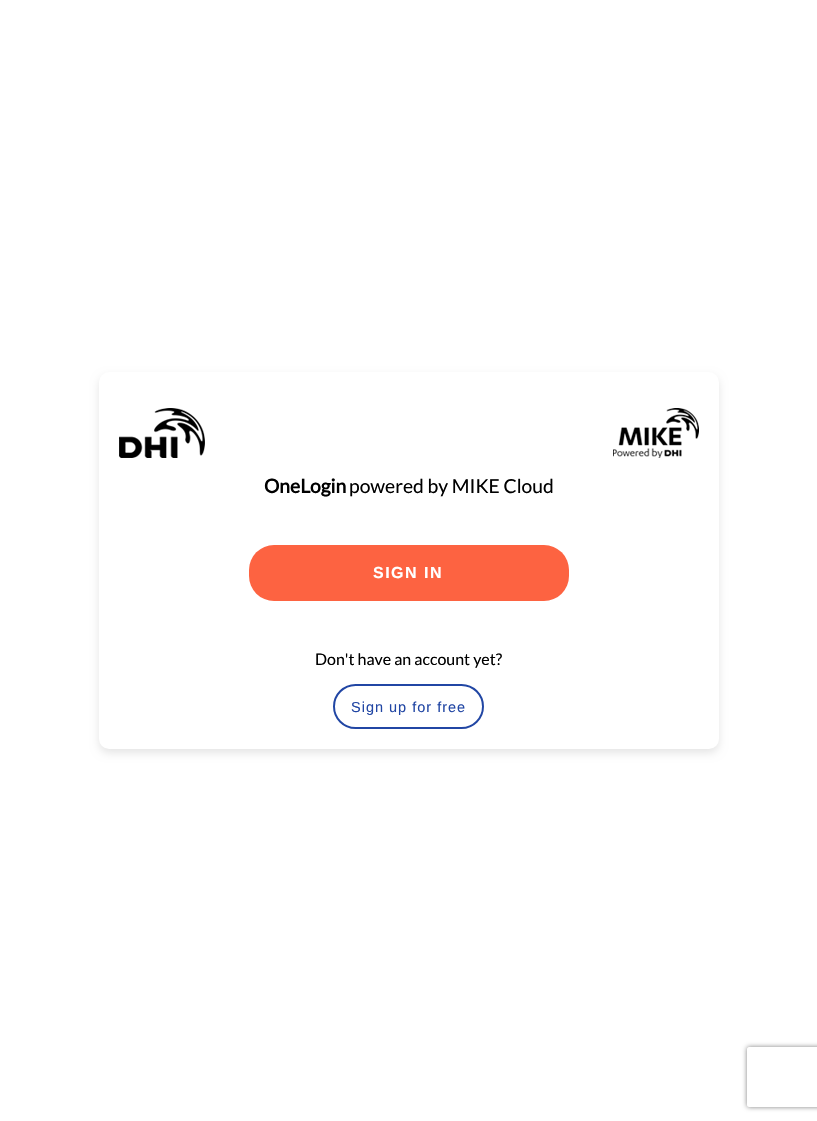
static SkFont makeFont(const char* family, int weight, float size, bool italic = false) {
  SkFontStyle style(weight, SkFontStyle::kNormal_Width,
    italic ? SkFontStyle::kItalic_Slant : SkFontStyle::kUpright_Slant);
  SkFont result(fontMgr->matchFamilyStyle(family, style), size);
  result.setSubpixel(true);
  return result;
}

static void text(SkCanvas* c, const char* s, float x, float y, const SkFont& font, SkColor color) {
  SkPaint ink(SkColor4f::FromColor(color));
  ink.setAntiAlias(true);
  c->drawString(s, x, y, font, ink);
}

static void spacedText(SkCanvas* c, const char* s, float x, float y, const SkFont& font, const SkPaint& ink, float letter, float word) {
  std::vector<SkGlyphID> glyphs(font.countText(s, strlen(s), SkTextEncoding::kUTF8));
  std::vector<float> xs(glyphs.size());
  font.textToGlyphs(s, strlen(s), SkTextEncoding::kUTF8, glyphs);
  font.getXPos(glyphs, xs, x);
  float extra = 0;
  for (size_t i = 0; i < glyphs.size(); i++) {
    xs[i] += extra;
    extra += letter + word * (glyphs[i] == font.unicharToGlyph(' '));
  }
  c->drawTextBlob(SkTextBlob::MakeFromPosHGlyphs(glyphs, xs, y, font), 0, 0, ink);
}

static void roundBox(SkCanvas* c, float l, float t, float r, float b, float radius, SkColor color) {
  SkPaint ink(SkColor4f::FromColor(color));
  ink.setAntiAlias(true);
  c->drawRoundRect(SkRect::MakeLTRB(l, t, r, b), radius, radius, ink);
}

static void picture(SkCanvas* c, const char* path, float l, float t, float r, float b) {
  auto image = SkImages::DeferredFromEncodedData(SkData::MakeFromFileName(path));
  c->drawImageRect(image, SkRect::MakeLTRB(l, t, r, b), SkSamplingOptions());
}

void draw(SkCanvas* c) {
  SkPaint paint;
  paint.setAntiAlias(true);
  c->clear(0xffffffff);
  paint.setColor(0x1a000000);
  paint.setMaskFilter(SkMaskFilter::MakeBlur(kNormal_SkBlurStyle, 4));
  c->drawRoundRect(SkRect::MakeLTRB(99, 376, 719, 753), 10, 10, paint);
  paint.setMaskFilter(nullptr);
  roundBox(c, 99, 372, 719, 749, 10, 0xffffffff);
  picture(c, "img_01.png", 119, 408, 205, 458);
  picture(c, "img_02.png", 613, 408, 699, 458);
  SkFont face1 = makeFont("Lato", 700, 19.25f);
  text(c, "OneLogin", 264, 493, face1, 0xff000000);
  SkFont face2 = makeFont("Lato", 400, 19.25f);
  text(c, "powered by MIKE Cloud", 349, 493, face2, 0xff000000);
  roundBox(c, 249, 545, 569, 601, 25, 0xfffd6341);
  SkFont face3 = makeFont("Liberation Sans", 700, 16);
  paint.setColor(0xffffffff);
  spacedText(c, "SIGN IN", 373, 578, face3, paint, 1.5f, 0);
  SkFont face4 = makeFont("Lato", 400, 16);
  text(c, "Don't have an account yet?", 315, 665, face4, 0xff000000);
  paint.setStyle(SkPaint::kStroke_Style);
  paint.setStrokeWidth(2);
  paint.setColor(0xff2146a4);
  c->drawRoundRect(SkRect::MakeLTRB(334, 685, 483, 728), 21.5f, 21.5f, paint);
  SkFont face5 = makeFont("Liberation Sans", 400, 14.5f);
  paint.setStyle(SkPaint::kFill_Style);
  spacedText(c, "Sign up for free", 351, 712, face5, paint, 1, 0);
  c->save();
  c->clipPath(SkPathBuilder(SkPathFillType::kEvenOdd).moveTo(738, 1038).lineTo(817, 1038).lineTo(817, 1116).lineTo(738, 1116).close().moveTo(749, 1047).lineTo(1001, 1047).cubicTo(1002, 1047, 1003, 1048, 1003, 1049).lineTo(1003, 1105).cubicTo(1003, 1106, 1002, 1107, 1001, 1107).lineTo(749, 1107).cubicTo(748, 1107, 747, 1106, 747, 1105).lineTo(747, 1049).cubicTo(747, 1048, 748, 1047, 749, 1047).close().detach(), true);
  paint.setColor(0xff808080);
  paint.setMaskFilter(SkMaskFilter::MakeBlur(kNormal_SkBlurStyle, 2.5f));
  c->drawRoundRect(SkRect::MakeLTRB(747, 1047, 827, 1107), 2, 2, paint);
  paint.setMaskFilter(nullptr);
  c->restore();
}
